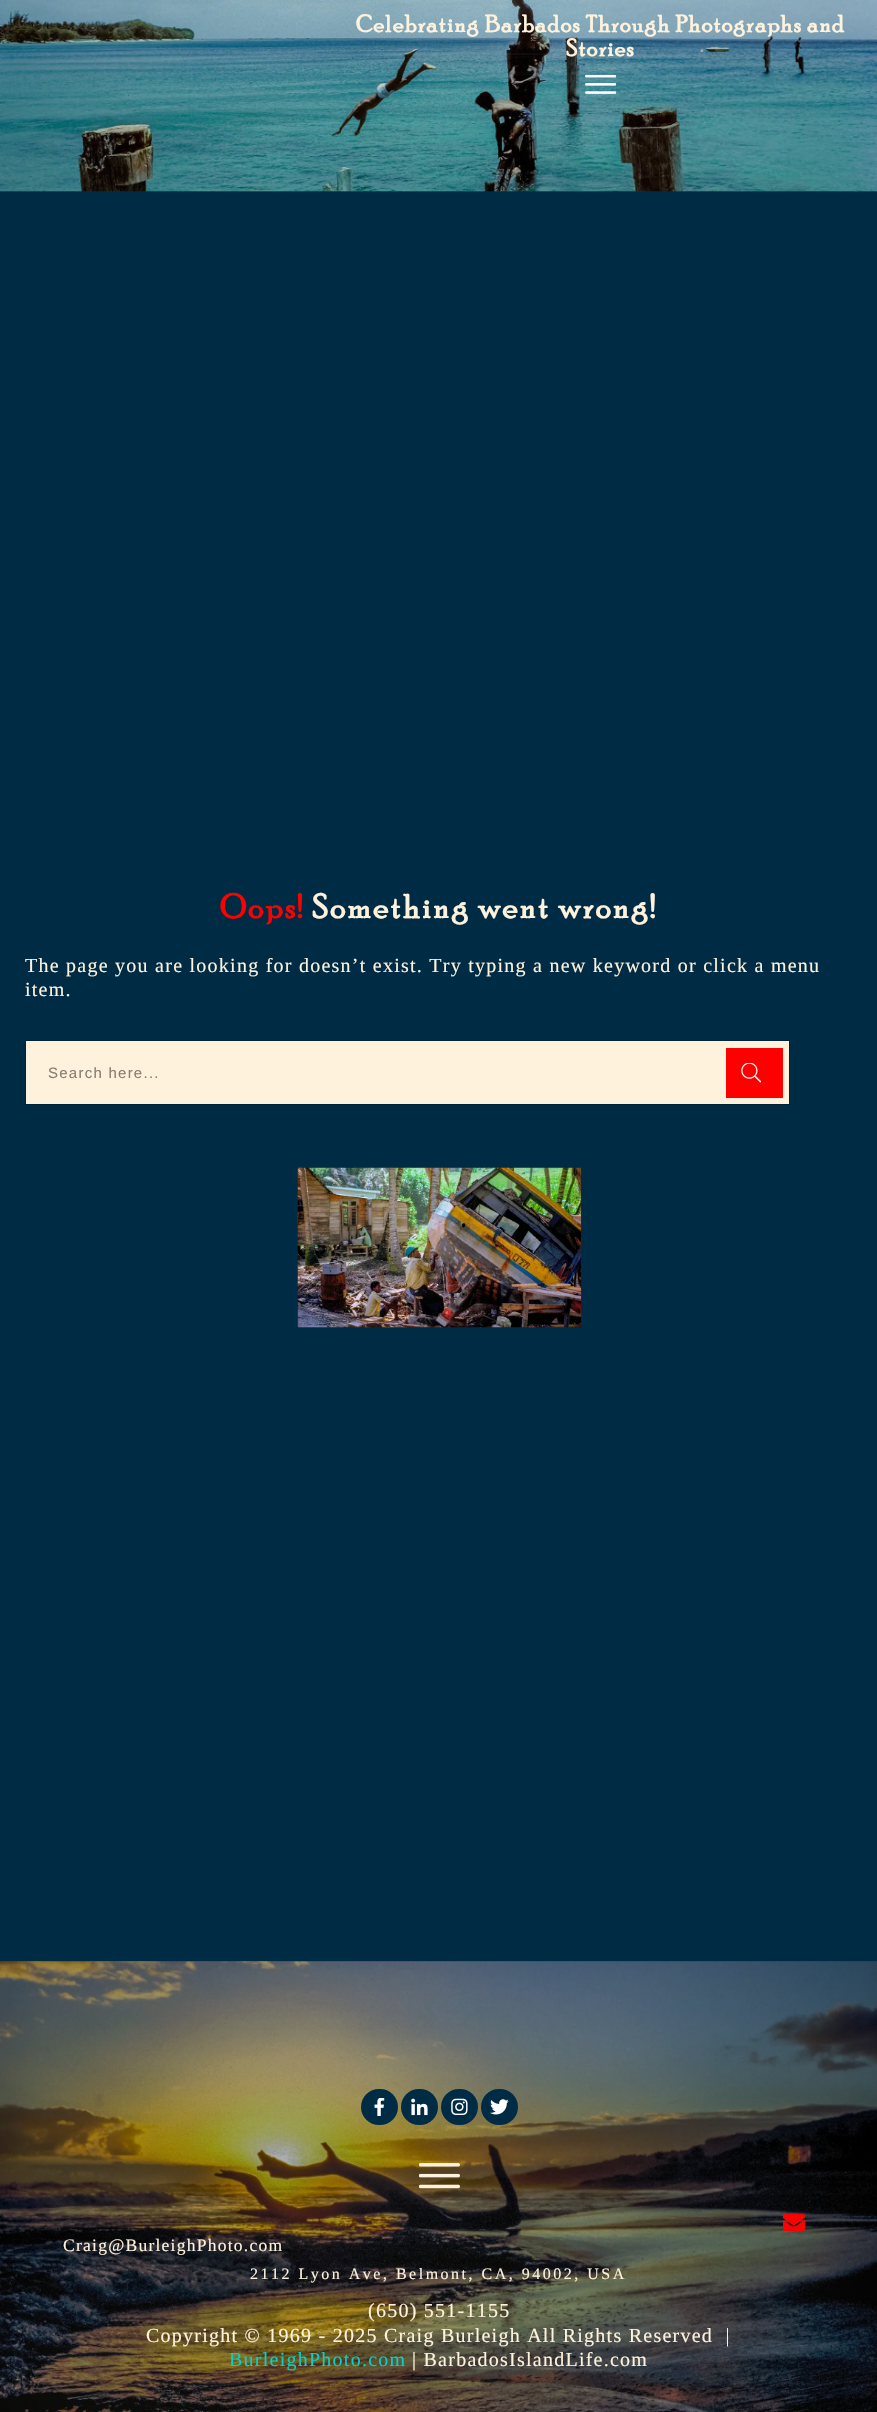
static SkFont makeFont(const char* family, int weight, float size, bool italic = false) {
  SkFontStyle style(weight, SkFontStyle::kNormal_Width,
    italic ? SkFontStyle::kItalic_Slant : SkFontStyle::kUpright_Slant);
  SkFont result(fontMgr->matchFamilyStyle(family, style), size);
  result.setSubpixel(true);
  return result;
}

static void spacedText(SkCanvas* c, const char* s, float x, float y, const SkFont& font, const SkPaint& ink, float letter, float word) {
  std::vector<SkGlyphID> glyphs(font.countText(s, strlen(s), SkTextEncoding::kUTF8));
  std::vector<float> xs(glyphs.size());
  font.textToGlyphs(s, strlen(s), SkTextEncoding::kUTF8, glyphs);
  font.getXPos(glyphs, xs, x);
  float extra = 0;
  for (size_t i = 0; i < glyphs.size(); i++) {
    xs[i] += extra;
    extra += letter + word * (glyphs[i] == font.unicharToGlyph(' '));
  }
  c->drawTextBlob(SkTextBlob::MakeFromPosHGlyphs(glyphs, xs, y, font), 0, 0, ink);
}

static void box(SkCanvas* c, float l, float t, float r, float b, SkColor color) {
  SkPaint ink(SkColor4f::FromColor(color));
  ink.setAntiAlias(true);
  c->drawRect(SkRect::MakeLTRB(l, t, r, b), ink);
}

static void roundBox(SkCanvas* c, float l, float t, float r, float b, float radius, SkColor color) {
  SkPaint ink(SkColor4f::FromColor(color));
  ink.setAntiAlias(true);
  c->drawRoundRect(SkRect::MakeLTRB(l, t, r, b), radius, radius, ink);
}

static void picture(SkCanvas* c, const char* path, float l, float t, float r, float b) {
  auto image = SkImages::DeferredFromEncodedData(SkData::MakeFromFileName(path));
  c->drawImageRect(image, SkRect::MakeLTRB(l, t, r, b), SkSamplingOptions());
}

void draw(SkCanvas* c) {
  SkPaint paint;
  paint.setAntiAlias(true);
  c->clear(0xff002b44);
  picture(c, "img_01.png", 0, 0, 877, 192);
  SkFont face1 = makeFont("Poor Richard", 700, 24);
  paint.setColor(0xfffff2dd);
  spacedText(c, "Celebrating Barbados Through Photographs and", 356, 32, face1, paint, 1.25f, 0);
  spacedText(c, "Stories", 566, 56, face1, paint, 1.25f, 0);
  picture(c, "img_02.png", 585, 74, 616, 94);
  SkFont face2 = makeFont("Poor Richard", 700, 33.75f);
  paint.setColor(0xffff0000);
  spacedText(c, "Oops!", 220, 918, face2, paint, 2.5f, 0);
  paint.setColor(0xfffff2dd);
  spacedText(c, "Something went wrong!", 312, 918, face2, paint, 2.5f, 0);
  SkFont face3 = makeFont("Liberation Serif", 400, 20);
  spacedText(c, "The page you are looking for doesn’t exist. Try typing a new keyword or click a menu", 25, 972, face3, paint, 1.25f, 0);
  spacedText(c, "item.", 25, 996, face3, paint, 1.25f, 0);
  c->drawRect(SkRect::MakeLTRB(25.5f, 1040.5f, 789.5f, 1104.5f), paint);
  paint.setStyle(SkPaint::kStroke_Style);
  paint.setStrokeWidth(1);
  paint.setColor(0xff002235);
  c->drawRect(SkRect::MakeLTRB(25.5f, 1040.5f, 789.5f, 1104.5f), paint);
  SkFont face4 = makeFont("Liberation Sans", 400, 15);
  paint.setStyle(SkPaint::kFill_Style);
  paint.setColor(0xff857e73);
  spacedText(c, "Search here...", 48, 1078, face4, paint, 1.25f, 0);
  box(c, 726, 1048, 783, 1098, 0xffff0000);
  picture(c, "img_03.png", 741, 1063, 761, 1083);
  picture(c, "img_04.png", 297, 1167, 582, 1328);
  picture(c, "img_05.png", 0, 1961, 877, 2412);
  roundBox(c, 361, 2089, 398, 2125, 18, 0xff002b44);
  picture(c, "img_06.png", 374, 2098, 385, 2116);
  roundBox(c, 401, 2089, 438, 2125, 18, 0xff002b44);
  picture(c, "img_07.png", 411, 2098, 428, 2116);
  roundBox(c, 441, 2089, 478, 2125, 18, 0xff002b44);
  picture(c, "img_08.png", 451, 2098, 468, 2115);
  roundBox(c, 481, 2089, 518, 2125, 18, 0xff002b44);
  picture(c, "img_09.png", 490, 2099, 509, 2115);
  picture(c, "img_10.png", 419, 2163, 460, 2189);
  picture(c, "img_11.png", 783, 2214, 805, 2231);
  SkFont face5 = makeFont("Liberation Serif", 400, 17.5f);
  paint.setColor(0xfffff2dd);
  spacedText(c, "Craig@BurleighPhoto.com", 63, 2251, face5, paint, 1.25f, 0);
  SkFont face6 = makeFont("Liberation Serif", 400, 16);
  spacedText(c, "2112 Lyon Ave, Belmont, CA, 94002, USA", 250, 2279, face6, paint, 2.5f, 0);
  spacedText(c, "(650) 551-1155", 368, 2317, face3, paint, 1.25f, 0);
  spacedText(c, "Copyright © 1969 - 2025 Craig Burleigh All Rights Reserved  |", 146, 2342, face3, paint, 1.25f, 0);
  paint.setColor(0xff00d4c8);
  spacedText(c, "BurleighPhoto.com", 229, 2366, face3, paint, 1.25f, 0);
  paint.setColor(0xfffff2dd);
  spacedText(c, "| BarbadosIslandLife.com", 412, 2366, face3, paint, 1.25f, 0);
}
